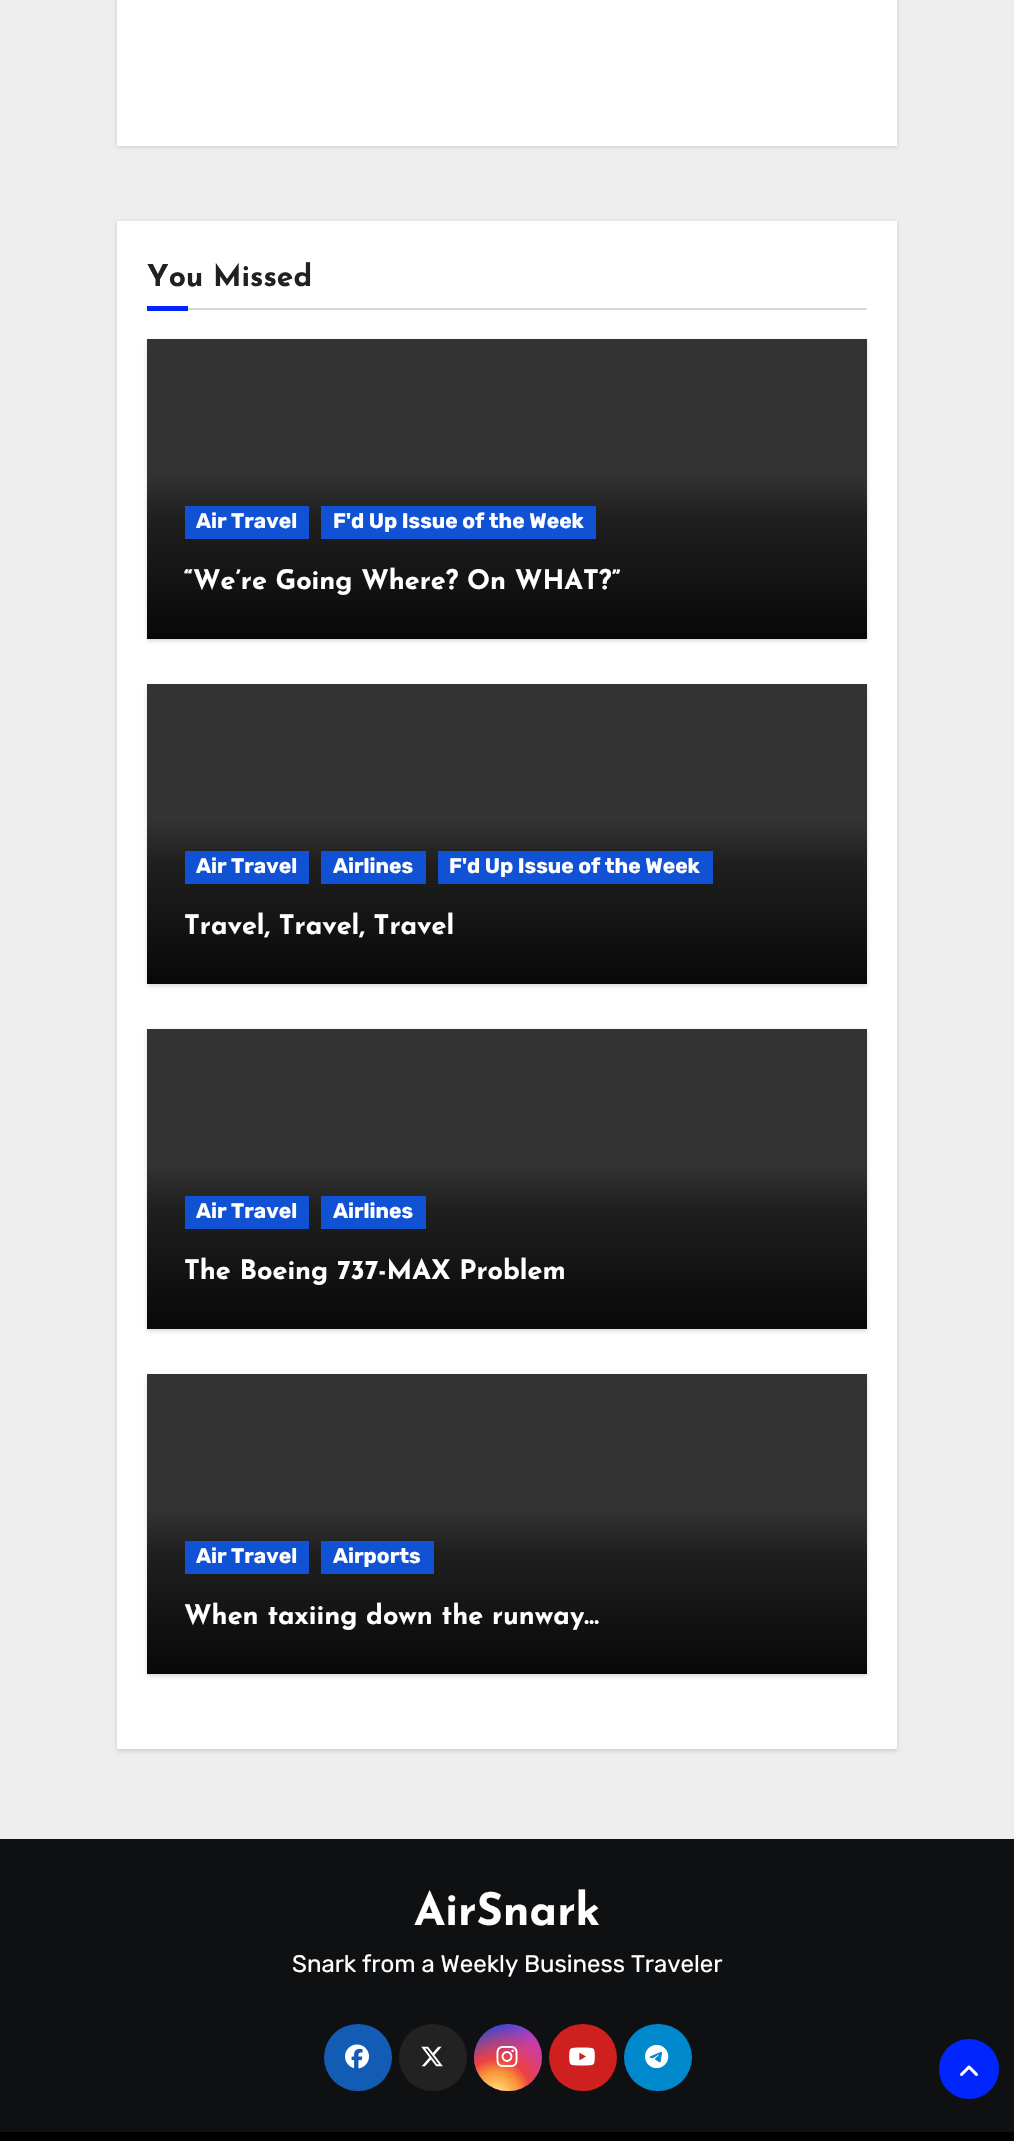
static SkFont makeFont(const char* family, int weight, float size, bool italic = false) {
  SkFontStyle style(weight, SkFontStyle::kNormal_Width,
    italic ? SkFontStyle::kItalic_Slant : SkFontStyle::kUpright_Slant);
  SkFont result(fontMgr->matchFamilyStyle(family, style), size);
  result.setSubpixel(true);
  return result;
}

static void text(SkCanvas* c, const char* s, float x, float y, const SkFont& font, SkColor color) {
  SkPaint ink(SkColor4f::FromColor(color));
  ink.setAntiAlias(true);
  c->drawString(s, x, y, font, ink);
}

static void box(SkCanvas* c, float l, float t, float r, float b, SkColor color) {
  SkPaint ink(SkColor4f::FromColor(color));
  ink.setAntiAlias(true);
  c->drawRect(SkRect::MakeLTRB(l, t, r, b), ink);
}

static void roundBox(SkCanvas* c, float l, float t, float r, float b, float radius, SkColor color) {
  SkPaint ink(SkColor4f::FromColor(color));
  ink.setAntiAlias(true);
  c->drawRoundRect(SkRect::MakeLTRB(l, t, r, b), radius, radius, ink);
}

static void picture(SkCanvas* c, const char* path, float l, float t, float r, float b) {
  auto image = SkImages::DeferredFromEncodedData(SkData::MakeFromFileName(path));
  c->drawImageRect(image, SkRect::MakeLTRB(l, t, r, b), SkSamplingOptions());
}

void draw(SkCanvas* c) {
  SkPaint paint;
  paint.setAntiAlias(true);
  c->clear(0xffeeeeee);
  paint.setColor(0x26000000);
  paint.setMaskFilter(SkMaskFilter::MakeBlur(kNormal_SkBlurStyle, 2));
  c->drawRect(SkRect::MakeLTRB(117, -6, 897, 147), paint);
  paint.setMaskFilter(nullptr);
  box(c, 117, 0, 897, 146, 0xffffffff);
  paint.setMaskFilter(SkMaskFilter::MakeBlur(kNormal_SkBlurStyle, 2));
  c->drawRect(SkRect::MakeLTRB(117, 222, 897, 1751), paint);
  paint.setMaskFilter(nullptr);
  box(c, 117, 221, 897, 1749, 0xffffffff);
  box(c, 188, 308, 867, 310, 0xffd7d7d7);
  SkFont face1 = makeFont("Josefin Sans", 700, 30);
  text(c, "You Missed", 147, 286, face1, 0xff212121);
  box(c, 147, 306, 188, 311, 0xff0025ff);
  paint.setMaskFilter(SkMaskFilter::MakeBlur(kNormal_SkBlurStyle, 2));
  c->drawRect(SkRect::MakeLTRB(147, 341, 867, 641), paint);
  paint.setMaskFilter(nullptr);
  {
    const SkColor colors[] = {0xff333333, 0xff333333, 0xff1f1f1f, 0xff080808};
    const float stops[] = {0, 0.45f, 0.6f, 1};
    const SkPoint ends[] = {{507, 339}, {507, 639}};
    paint.setShader(SkGradientShader::MakeLinear(ends, colors, stops, 4, SkTileMode::kClamp));
    paint.setAlpha(255);
  }
  c->drawRect(SkRect::MakeLTRB(147, 339, 867, 639), paint);
  box(c, 185, 506, 309, 539, 0xff1151d3);
  SkFont face2 = makeFont("Rubik", 700, 21);
  text(c, "Air Travel", 196, 528, face2, 0xffffffff);
  box(c, 321, 506, 596, 539, 0xff1151d3);
  text(c, "F'd Up Issue of the Week", 333, 528, face2, 0xffffffff);
  SkFont face3 = makeFont("Josefin Sans", 700, 27);
  text(c, "“We’re Going Where? On WHAT?”", 184, 589, face3, 0xffffffff);
  paint.setShader(nullptr);
  paint.setColor(0x26000000);
  paint.setMaskFilter(SkMaskFilter::MakeBlur(kNormal_SkBlurStyle, 2));
  c->drawRect(SkRect::MakeLTRB(147, 686, 867, 986), paint);
  paint.setMaskFilter(nullptr);
  {
    const SkColor colors[] = {0xff333333, 0xff333333, 0xff1f1f1f, 0xff080808};
    const float stops[] = {0, 0.45f, 0.6f, 1};
    const SkPoint ends[] = {{507, 684}, {507, 984}};
    paint.setShader(SkGradientShader::MakeLinear(ends, colors, stops, 4, SkTileMode::kClamp));
    paint.setAlpha(255);
  }
  c->drawRect(SkRect::MakeLTRB(147, 684, 867, 984), paint);
  box(c, 185, 851, 309, 884, 0xff1151d3);
  text(c, "Air Travel", 196, 873, face2, 0xffffffff);
  box(c, 321, 851, 426, 884, 0xff1151d3);
  text(c, "Airlines", 333, 873, face2, 0xffffffff);
  box(c, 438, 851, 713, 884, 0xff1151d3);
  text(c, "F'd Up Issue of the Week", 449, 873, face2, 0xffffffff);
  text(c, "Travel, Travel, Travel", 184, 934, face3, 0xffffffff);
  paint.setShader(nullptr);
  paint.setColor(0x26000000);
  paint.setMaskFilter(SkMaskFilter::MakeBlur(kNormal_SkBlurStyle, 2));
  c->drawRect(SkRect::MakeLTRB(147, 1031, 867, 1331), paint);
  paint.setMaskFilter(nullptr);
  {
    const SkColor colors[] = {0xff333333, 0xff333333, 0xff1f1f1f, 0xff080808};
    const float stops[] = {0, 0.45f, 0.6f, 1};
    const SkPoint ends[] = {{507, 1029}, {507, 1329}};
    paint.setShader(SkGradientShader::MakeLinear(ends, colors, stops, 4, SkTileMode::kClamp));
    paint.setAlpha(255);
  }
  c->drawRect(SkRect::MakeLTRB(147, 1029, 867, 1329), paint);
  box(c, 185, 1196, 309, 1229, 0xff1151d3);
  text(c, "Air Travel", 196, 1218, face2, 0xffffffff);
  box(c, 321, 1196, 426, 1229, 0xff1151d3);
  text(c, "Airlines", 333, 1218, face2, 0xffffffff);
  text(c, "The Boeing 737-MAX Problem", 184, 1279, face3, 0xffffffff);
  paint.setShader(nullptr);
  paint.setColor(0x26000000);
  paint.setMaskFilter(SkMaskFilter::MakeBlur(kNormal_SkBlurStyle, 2));
  c->drawRect(SkRect::MakeLTRB(147, 1376, 867, 1676), paint);
  paint.setMaskFilter(nullptr);
  {
    const SkColor colors[] = {0xff333333, 0xff333333, 0xff1f1f1f, 0xff080808};
    const float stops[] = {0, 0.45f, 0.6f, 1};
    const SkPoint ends[] = {{507, 1374}, {507, 1674}};
    paint.setShader(SkGradientShader::MakeLinear(ends, colors, stops, 4, SkTileMode::kClamp));
    paint.setAlpha(255);
  }
  c->drawRect(SkRect::MakeLTRB(147, 1374, 867, 1674), paint);
  box(c, 185, 1541, 309, 1574, 0xff1151d3);
  text(c, "Air Travel", 196, 1563, face2, 0xffffffff);
  box(c, 321, 1541, 434, 1574, 0xff1151d3);
  text(c, "Airports", 333, 1563, face2, 0xffffffff);
  text(c, "When taxiing down the runway…", 184, 1624, face3, 0xffffffff);
  box(c, 0, 1839, 1014, 2132, 0xff0f1012);
  SkFont face4 = makeFont("Josefin Sans", 700, 45);
  text(c, "AirSnark", 414, 1925, face4, 0xffffffff);
  SkFont face5 = makeFont("Rubik", 300, 24);
  text(c, "Snark from a Weekly Business Traveler", 292, 1972, face5, 0xffffffff);
  roundBox(c, 324, 2024, 392, 2091, 33.5f, 0xff135cb6);
  picture(c, "img_01.png", 345, 2044, 369, 2069);
  roundBox(c, 399, 2024, 467, 2091, 33.5f, 0xff222222);
  picture(c, "img_02.png", 421, 2046, 443, 2067);
  {
    const SkColor colors[] = {0xff234bd7, 0xffc33cbe};
    const float stops[] = {0.12f, 0.58f};
    const SkPoint ends[] = {{474, 2024}, {542, 2091}};
    paint.setShader(SkGradientShader::MakeLinear(ends, colors, stops, 2, SkTileMode::kClamp));
    paint.setAlpha(255);
  }
  c->drawRoundRect(SkRect::MakeLTRB(474, 2024, 542, 2091), 33.5f, 33.5f, paint);
  {
    const SkColor colors[] = {0xffffe17d, 0xffffcd69, 0xfffa9137, 0xffeb4141, 0x00eb4141};
    const float stops[] = {0, 0.1f, 0.28f, 0.42f, 0.82f};
    paint.setShader(SkGradientShader::MakeRadial({496, 2095}, 85, colors, stops, 5, SkTileMode::kClamp));
    paint.setAlpha(255);
  }
  c->drawRoundRect(SkRect::MakeLTRB(474, 2024, 542, 2091), 33.5f, 33.5f, paint);
  picture(c, "img_03.png", 496, 2046, 518, 2067);
  roundBox(c, 549, 2024, 617, 2091, 33.5f, 0xffcd201f);
  picture(c, "img_04.png", 569, 2047, 595, 2066);
  roundBox(c, 624, 2024, 692, 2091, 33.5f, 0xff0088cc);
  picture(c, "img_05.png", 645, 2044, 669, 2069);
  box(c, 0, 2132, 1014, 2141, 0xff000000);
  paint.setShader(nullptr);
  paint.setColor(0xff0025ff);
  c->drawCircle(969, 2069, 28.5f, paint);
  paint.setStyle(SkPaint::kStroke_Style);
  paint.setStrokeWidth(3);
  c->drawCircle(969, 2069, 28.5f, paint);
  picture(c, "img_06.png", 960, 2065, 978, 2076);
}
